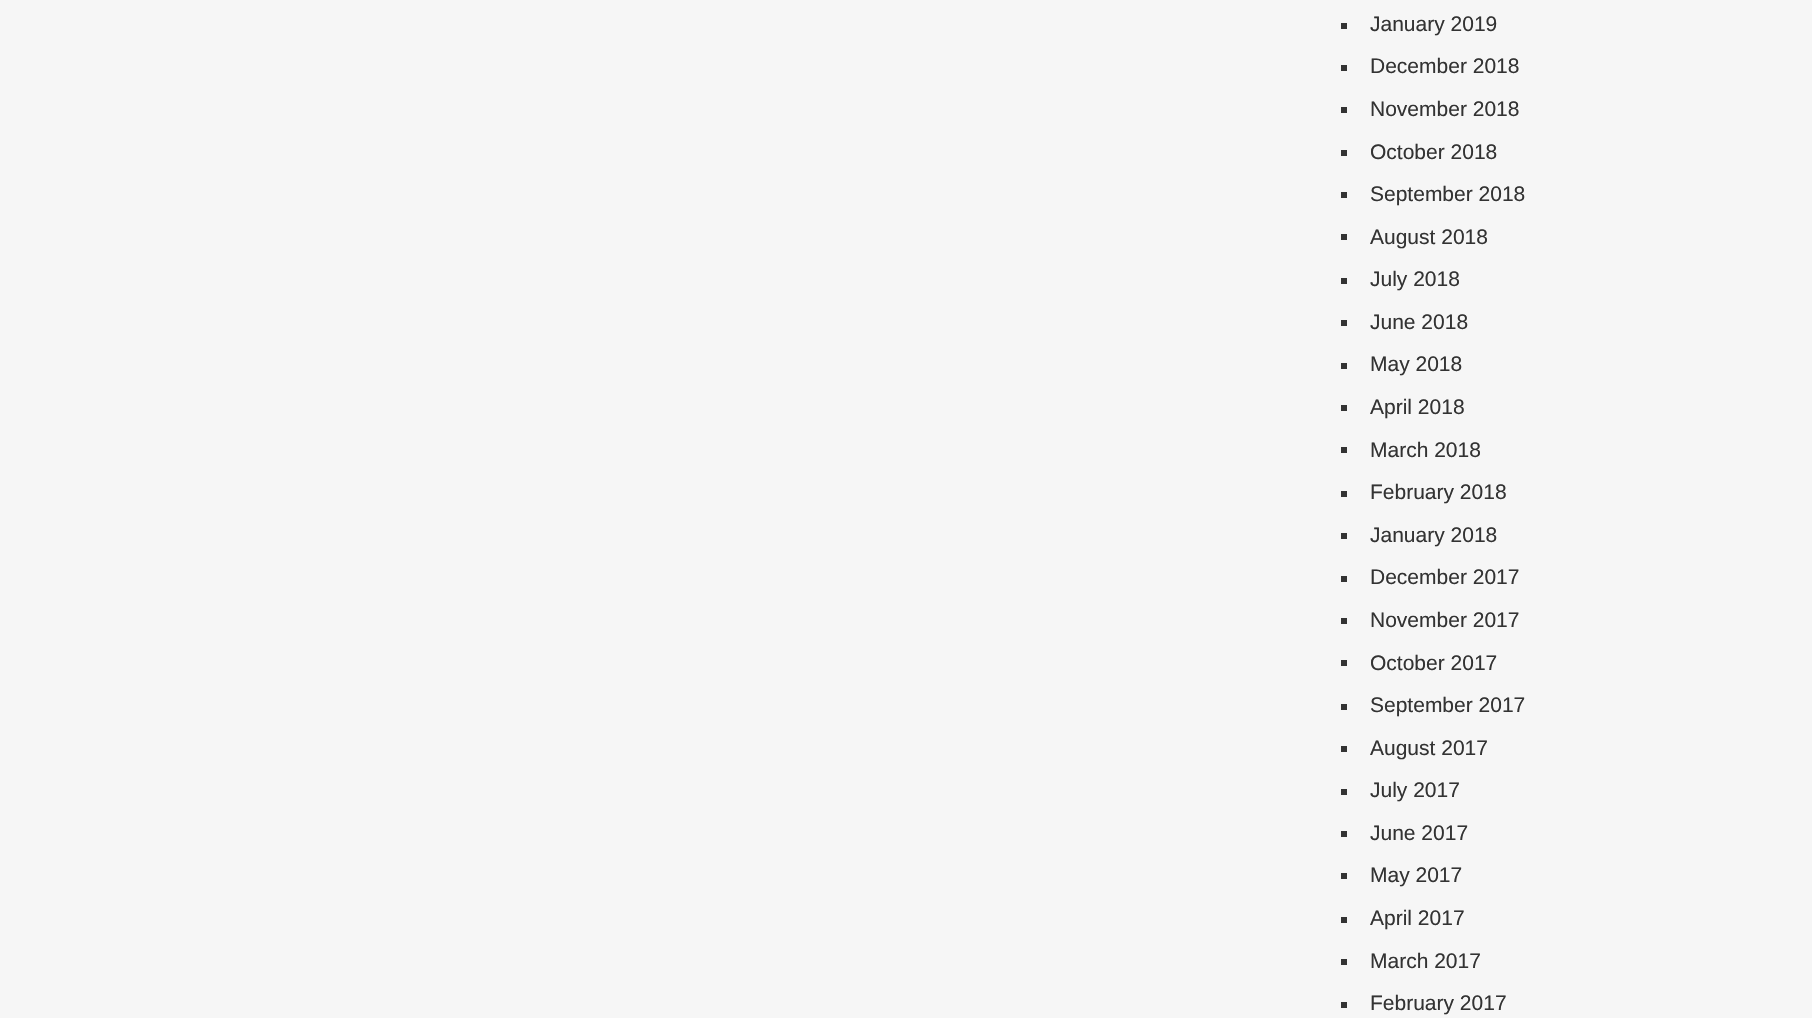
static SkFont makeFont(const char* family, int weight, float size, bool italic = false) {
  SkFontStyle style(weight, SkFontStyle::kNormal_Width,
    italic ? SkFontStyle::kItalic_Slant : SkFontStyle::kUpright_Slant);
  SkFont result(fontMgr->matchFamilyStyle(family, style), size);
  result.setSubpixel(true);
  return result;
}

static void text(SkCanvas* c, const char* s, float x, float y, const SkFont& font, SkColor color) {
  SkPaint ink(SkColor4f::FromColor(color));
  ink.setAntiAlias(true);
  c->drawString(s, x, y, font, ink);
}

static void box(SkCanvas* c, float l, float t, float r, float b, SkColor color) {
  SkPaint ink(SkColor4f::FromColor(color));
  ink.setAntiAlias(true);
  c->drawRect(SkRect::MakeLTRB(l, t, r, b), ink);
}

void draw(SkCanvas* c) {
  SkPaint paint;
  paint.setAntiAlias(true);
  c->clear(0xfff6f6f6);
  box(c, 1341, 23, 1347, 29, 0xff333333);
  SkFont face1 = makeFont("Liberation Sans", 400, 21);
  text(c, "January 2019", 1370, 31, face1, 0xff333333);
  box(c, 1341, 65, 1347, 71, 0xff333333);
  text(c, "December 2018", 1370, 73, face1, 0xff333333);
  box(c, 1341, 107, 1347, 113, 0xff333333);
  text(c, "November 2018", 1370, 116, face1, 0xff333333);
  box(c, 1341, 150, 1347, 156, 0xff333333);
  text(c, "October 2018", 1370, 159, face1, 0xff333333);
  box(c, 1341, 192, 1347, 198, 0xff333333);
  text(c, "September 2018", 1370, 201, face1, 0xff333333);
  box(c, 1341, 234, 1347, 240, 0xff333333);
  text(c, "August 2018", 1370, 244, face1, 0xff333333);
  box(c, 1341, 278, 1347, 284, 0xff333333);
  text(c, "July 2018", 1370, 286, face1, 0xff333333);
  box(c, 1341, 320, 1347, 326, 0xff333333);
  text(c, "June 2018", 1370, 329, face1, 0xff333333);
  box(c, 1341, 363, 1347, 369, 0xff333333);
  text(c, "May 2018", 1370, 371, face1, 0xff333333);
  box(c, 1341, 405, 1347, 411, 0xff333333);
  text(c, "April 2018", 1370, 414, face1, 0xff333333);
  box(c, 1341, 447, 1347, 453, 0xff333333);
  text(c, "March 2018", 1370, 457, face1, 0xff333333);
  box(c, 1341, 491, 1347, 497, 0xff333333);
  text(c, "February 2018", 1370, 499, face1, 0xff333333);
  box(c, 1341, 533, 1347, 539, 0xff333333);
  text(c, "January 2018", 1370, 542, face1, 0xff333333);
  box(c, 1341, 576, 1347, 582, 0xff333333);
  text(c, "December 2017", 1370, 584, face1, 0xff333333);
  box(c, 1341, 618, 1347, 624, 0xff333333);
  text(c, "November 2017", 1370, 627, face1, 0xff333333);
  box(c, 1341, 660, 1347, 666, 0xff333333);
  text(c, "October 2017", 1370, 670, face1, 0xff333333);
  box(c, 1341, 704, 1347, 710, 0xff333333);
  text(c, "September 2017", 1370, 712, face1, 0xff333333);
  box(c, 1341, 746, 1347, 752, 0xff333333);
  text(c, "August 2017", 1370, 755, face1, 0xff333333);
  box(c, 1341, 789, 1347, 795, 0xff333333);
  text(c, "July 2017", 1370, 797, face1, 0xff333333);
  box(c, 1341, 831, 1347, 837, 0xff333333);
  text(c, "June 2017", 1370, 840, face1, 0xff333333);
  box(c, 1341, 873, 1347, 879, 0xff333333);
  text(c, "May 2017", 1370, 882, face1, 0xff333333);
  box(c, 1341, 917, 1347, 923, 0xff333333);
  text(c, "April 2017", 1370, 925, face1, 0xff333333);
  box(c, 1341, 959, 1347, 965, 0xff333333);
  text(c, "March 2017", 1370, 968, face1, 0xff333333);
  box(c, 1341, 1002, 1347, 1008, 0xff333333);
  text(c, "February 2017", 1370, 1010, face1, 0xff333333);
}
